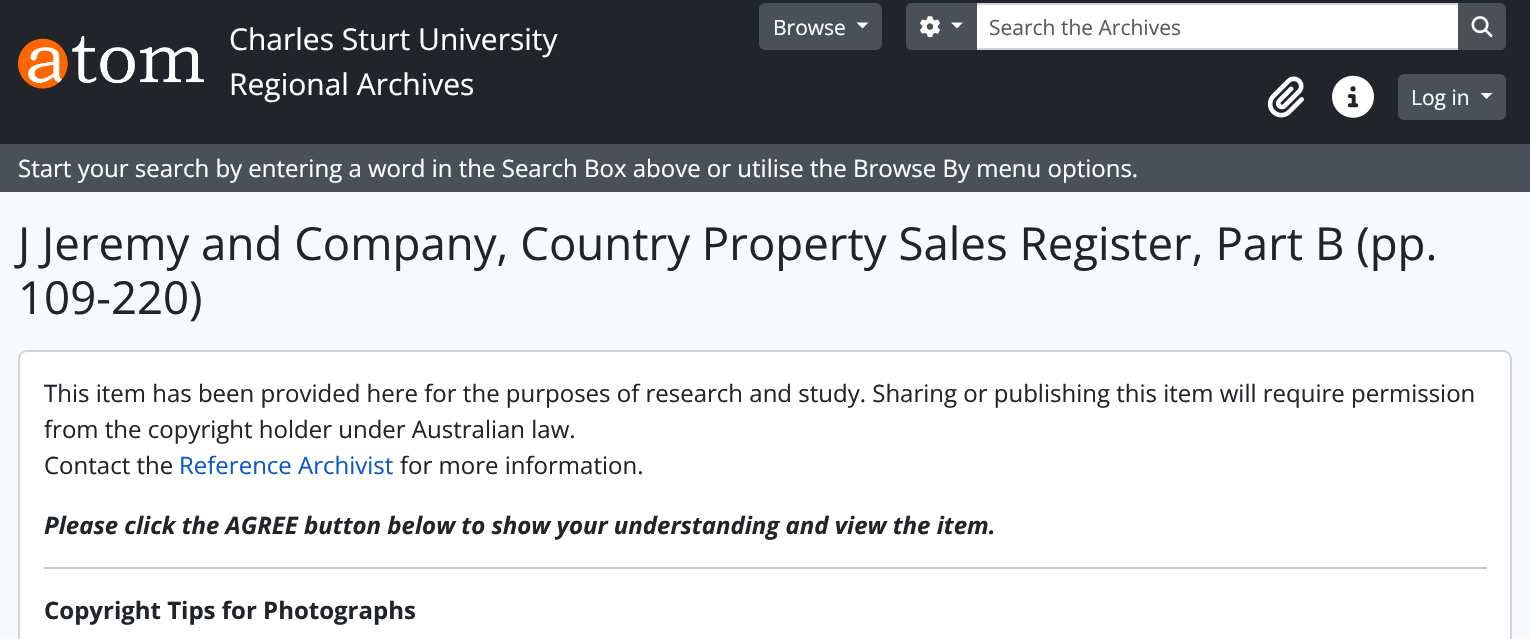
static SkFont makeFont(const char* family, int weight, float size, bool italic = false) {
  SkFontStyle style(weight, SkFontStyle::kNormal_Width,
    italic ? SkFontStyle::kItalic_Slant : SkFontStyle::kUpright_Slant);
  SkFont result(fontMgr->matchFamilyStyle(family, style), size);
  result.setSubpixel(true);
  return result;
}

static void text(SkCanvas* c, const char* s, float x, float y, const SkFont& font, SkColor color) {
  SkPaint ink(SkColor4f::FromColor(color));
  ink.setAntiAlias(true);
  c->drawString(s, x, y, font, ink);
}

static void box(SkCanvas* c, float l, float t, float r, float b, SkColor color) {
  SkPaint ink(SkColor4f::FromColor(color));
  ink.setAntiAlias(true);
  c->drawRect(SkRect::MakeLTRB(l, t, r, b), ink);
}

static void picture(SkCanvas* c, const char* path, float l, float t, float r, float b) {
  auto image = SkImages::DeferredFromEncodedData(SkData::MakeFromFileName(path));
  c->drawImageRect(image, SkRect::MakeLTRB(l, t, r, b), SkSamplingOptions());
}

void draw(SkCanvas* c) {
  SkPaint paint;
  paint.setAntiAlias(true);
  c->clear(0xfff8f9fa);
  box(c, 0, 0, 1530, 144, 0xff212529);
  picture(c, "img_01.png", 18, 36, 204, 89);
  SkFont face1 = makeFont("Open Sans", 400, 30);
  text(c, "Charles Sturt University", 229, 50, face1, 0xffffffff);
  text(c, "Regional Archives", 229, 95, face1, 0xffffffff);
  paint.setColor(0xff495057);
  c->drawRoundRect(SkRect::MakeLTRB(760, 4, 881, 49), 5, 5, paint);
  paint.setStyle(SkPaint::kStroke_Style);
  paint.setStrokeWidth(2);
  c->drawRoundRect(SkRect::MakeLTRB(760, 4, 881, 49), 5, 5, paint);
  SkFont face2 = makeFont("Open Sans", 400, 21);
  text(c, "Browse", 773, 35, face2, 0xffffffff);
  paint.setStyle(SkPaint::kFill_Style);
  paint.setColor(0xffffffff);
  c->drawPath(SkPathBuilder().moveTo(856.5f, 22.5f).lineTo(868.5f, 22.5f).lineTo(862.5f, 28.5f).close().detach(), paint);
  c->drawRect(SkRect::MakeLTRB(976, 4, 1459, 49), paint);
  paint.setStyle(SkPaint::kStroke_Style);
  paint.setColor(0xffced4da);
  c->drawRect(SkRect::MakeLTRB(976, 4, 1459, 49), paint);
  paint.setStyle(SkPaint::kFill_Style);
  paint.setColor(0xff495057);
  c->drawPath(SkPathBuilder().moveTo(912, 4).lineTo(976, 4).lineTo(976, 49).lineTo(912, 49).cubicTo(909, 49, 907, 47, 907, 44).lineTo(907, 9).cubicTo(907, 6, 909, 4, 912, 4).close().detach(), paint);
  paint.setStyle(SkPaint::kStroke_Style);
  c->drawPath(SkPathBuilder().moveTo(912, 4).lineTo(976, 4).lineTo(976, 49).lineTo(912, 49).cubicTo(909, 49, 907, 47, 907, 44).lineTo(907, 9).cubicTo(907, 6, 909, 4, 912, 4).close().detach(), paint);
  picture(c, "img_02.png", 920, 16, 940, 38);
  paint.setStyle(SkPaint::kFill_Style);
  paint.setColor(0xffffffff);
  c->drawPath(SkPathBuilder().moveTo(951, 22.5f).lineTo(963, 22.5f).lineTo(957, 28.5f).close().detach(), paint);
  text(c, "Search the Archives", 989, 35, face2, 0xff595c5f);
  paint.setColor(0xff495057);
  c->drawPath(SkPathBuilder().moveTo(1459, 4).lineTo(1500, 4).cubicTo(1503, 4, 1505, 6, 1505, 9).lineTo(1505, 44).cubicTo(1505, 47, 1503, 49, 1500, 49).lineTo(1459, 49).close().detach(), paint);
  paint.setStyle(SkPaint::kStroke_Style);
  c->drawPath(SkPathBuilder().moveTo(1459, 4).lineTo(1500, 4).cubicTo(1503, 4, 1505, 6, 1505, 9).lineTo(1505, 44).cubicTo(1505, 47, 1503, 49, 1500, 49).lineTo(1459, 49).close().detach(), paint);
  picture(c, "img_03.png", 1471, 16, 1493, 38);
  picture(c, "img_04.png", 1267, 76, 1304, 118);
  picture(c, "img_05.png", 1332, 75, 1374, 118);
  paint.setStyle(SkPaint::kFill_Style);
  c->drawRoundRect(SkRect::MakeLTRB(1399, 75, 1505, 119), 5, 5, paint);
  paint.setStyle(SkPaint::kStroke_Style);
  c->drawRoundRect(SkRect::MakeLTRB(1399, 75, 1505, 119), 5, 5, paint);
  text(c, "Log in", 1411, 105, face2, 0xffffffff);
  paint.setStyle(SkPaint::kFill_Style);
  paint.setColor(0xffffffff);
  c->drawPath(SkPathBuilder().moveTo(1480.5f, 93).lineTo(1492.5f, 93).lineTo(1486.5f, 99).close().detach(), paint);
  box(c, 0, 144, 1530, 192, 0xff495057);
  SkFont face3 = makeFont("Open Sans", 400, 24);
  text(c, "Start your search by entering a word in the Search Box above or utilise the Browse By menu options.", 18, 177, face3, 0xffffffff);
  SkFont face4 = makeFont("Open Sans", 400, 45.6f);
  text(c, "J Jeremy and Company, Country Property Sales Register, Part B (pp.", 18, 260, face4, 0xff212529);
  text(c, "109-220)", 18, 314, face4, 0xff212529);
  c->drawRoundRect(SkRect::MakeLTRB(19, 351, 1511, 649), 8, 8, paint);
  paint.setStyle(SkPaint::kStroke_Style);
  paint.setColor(0xffced4da);
  c->drawRoundRect(SkRect::MakeLTRB(19, 351, 1511, 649), 8, 8, paint);
  text(c, "This item has been provided here for the purposes of research and study. Sharing or publishing this item will require permission", 44, 402, face3, 0xff212529);
  text(c, "from the copyright holder under Australian law.", 44, 438, face3, 0xff212529);
  text(c, "Contact the", 44, 474, face3, 0xff212529);
  text(c, "Reference Archivist", 179, 474, face3, 0xff0a58ca);
  text(c, "for more information.", 400, 474, face3, 0xff212529);
  SkFont face5 = makeFont("Open Sans", 700, 24, true);
  text(c, "Please click the AGREE button below to show your understanding and view the item.", 44, 534, face5, 0xff212529);
  box(c, 44, 567, 1487, 569, 0xffc8c9ca);
  SkFont face6 = makeFont("Open Sans", 700, 24);
  text(c, "Copyright Tips for Photographs", 44, 619, face6, 0xff212529);
}
